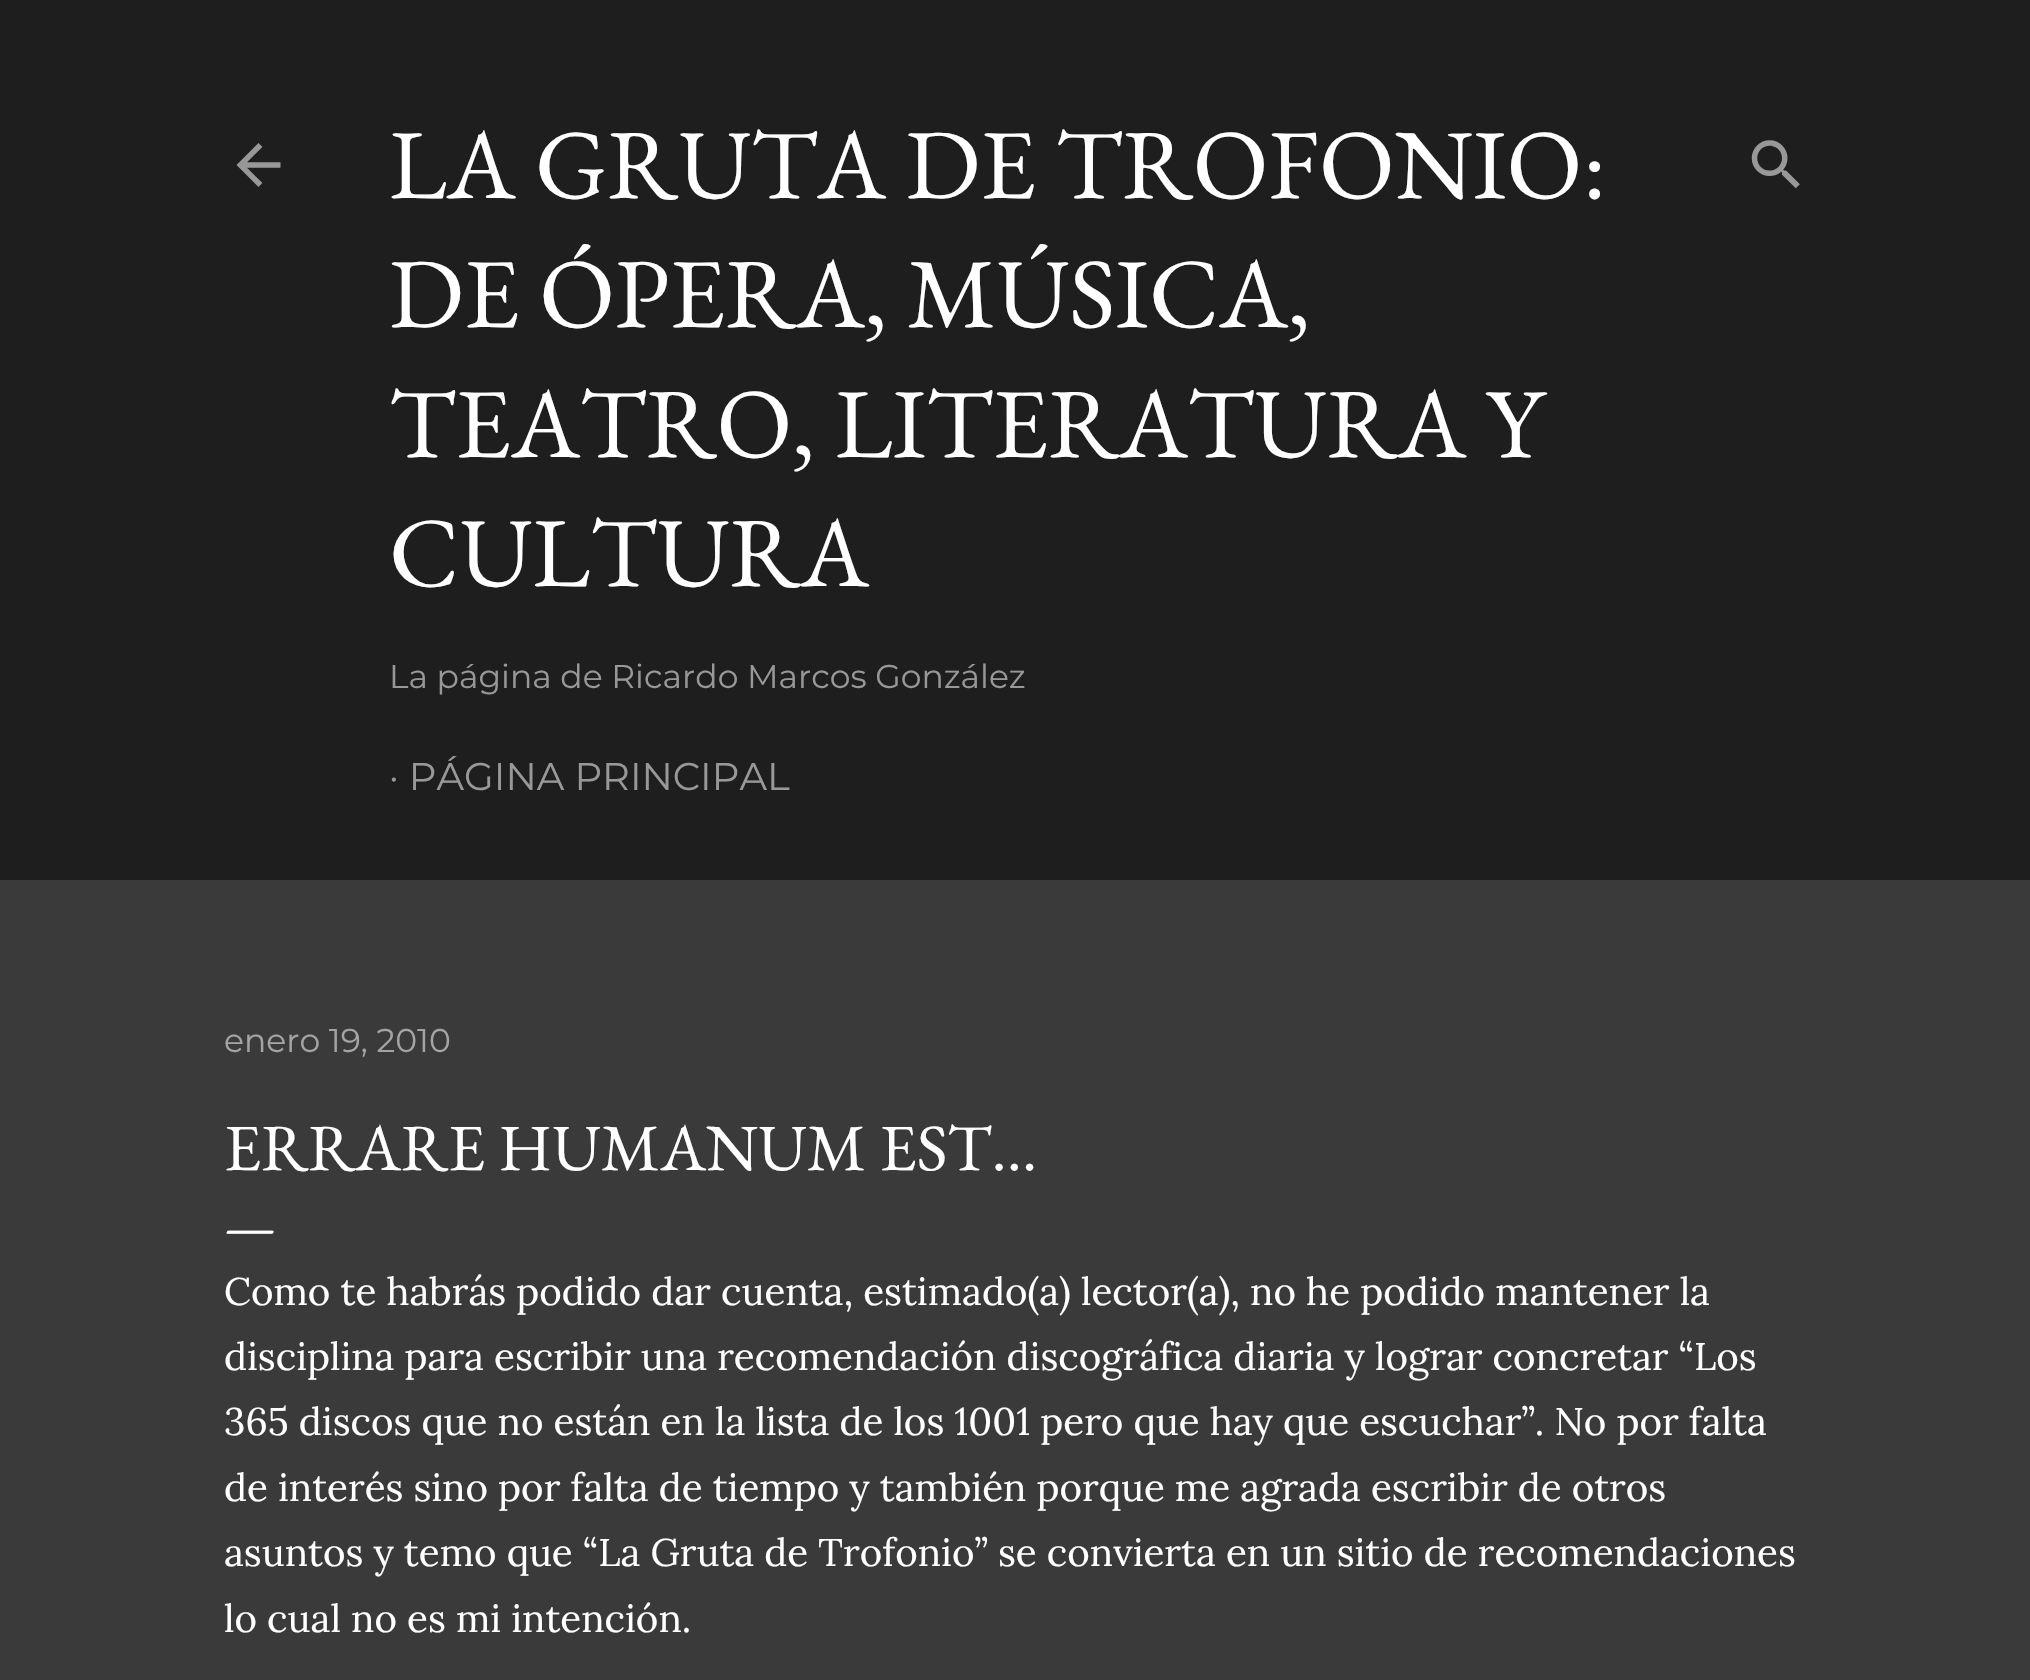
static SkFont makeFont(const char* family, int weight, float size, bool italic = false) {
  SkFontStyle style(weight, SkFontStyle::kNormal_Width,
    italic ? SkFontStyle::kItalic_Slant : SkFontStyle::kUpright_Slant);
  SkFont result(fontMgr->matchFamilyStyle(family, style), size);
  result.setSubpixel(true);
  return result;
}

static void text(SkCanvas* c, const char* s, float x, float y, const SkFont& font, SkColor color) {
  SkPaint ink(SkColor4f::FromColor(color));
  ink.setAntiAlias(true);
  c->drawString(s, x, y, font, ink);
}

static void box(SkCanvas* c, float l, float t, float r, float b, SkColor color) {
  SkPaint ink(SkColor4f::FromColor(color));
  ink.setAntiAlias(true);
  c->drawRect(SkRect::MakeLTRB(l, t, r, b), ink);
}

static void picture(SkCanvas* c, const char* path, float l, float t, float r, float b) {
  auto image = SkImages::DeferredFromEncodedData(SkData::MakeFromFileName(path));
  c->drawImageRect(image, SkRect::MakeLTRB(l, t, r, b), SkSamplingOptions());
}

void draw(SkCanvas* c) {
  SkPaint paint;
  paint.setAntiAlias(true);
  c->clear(0xff3a3a3a);
  box(c, 0, 0, 2030, 880, 0xff1e1e1e);
  picture(c, "img_01.png", 236, 143, 281, 187);
  SkFont face1 = makeFont("EB Garamond", 400, 99);
  text(c, "LA GRUTA DE TROFONIO:", 389, 198, face1, 0xffffffff);
  text(c, "DE ÓPERA, MÚSICA,", 389, 327, face1, 0xffffffff);
  text(c, "TEATRO, LITERATURA Y", 389, 457, face1, 0xffffffff);
  text(c, "CULTURA", 389, 586, face1, 0xffffffff);
  SkFont face2 = makeFont("Montserrat", 400, 33);
  text(c, "La página de Ricardo Marcos González", 389, 688, face2, 0xff989898);
  SkFont face3 = makeFont("Montserrat", 400, 38.5f);
  text(c, "· PÁGINA PRINCIPAL", 389, 790, face3, 0xff989898);
  picture(c, "img_02.png", 1751, 140, 1800, 189);
  text(c, "enero 19, 2010", 224, 1052, face2, 0xffa4a4a4);
  SkFont face4 = makeFont("EB Garamond", 400, 66);
  text(c, "ERRARE HUMANUM EST...", 224, 1170, face4, 0xffffffff);
  SkFont face5 = makeFont("EB Garamond", 400, 55);
  text(c, "—", 224, 1244, face5, 0xffffffff);
  SkFont face6 = makeFont("Lora", 400, 38.5f);
  text(c, "Como te habrás podido dar cuenta, estimado(a) lector(a), no he podido mantener la", 224, 1305, face6, 0xffffffff);
  text(c, "disciplina para escribir una recomendación discográfica diaria y lograr concretar “Los", 224, 1370, face6, 0xffffffff);
  text(c, "365 discos que no están en la lista de los 1001 pero que hay que escuchar”. No por falta", 224, 1435, face6, 0xffffffff);
  text(c, "de interés sino por falta de tiempo y también porque me agrada escribir de otros", 224, 1501, face6, 0xffffffff);
  text(c, "asuntos y temo que “La Gruta de Trofonio” se convierta en un sitio de recomendaciones", 224, 1566, face6, 0xffffffff);
  text(c, "lo cual no es mi intención.", 224, 1632, face6, 0xffffffff);
}
